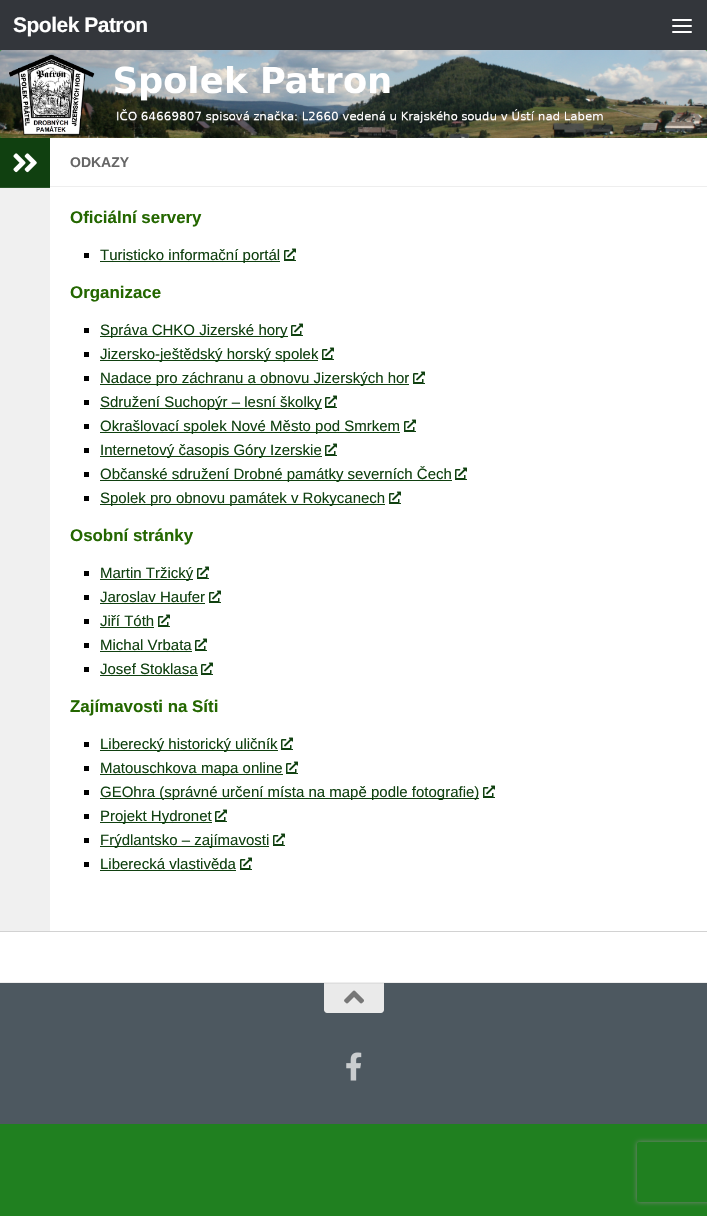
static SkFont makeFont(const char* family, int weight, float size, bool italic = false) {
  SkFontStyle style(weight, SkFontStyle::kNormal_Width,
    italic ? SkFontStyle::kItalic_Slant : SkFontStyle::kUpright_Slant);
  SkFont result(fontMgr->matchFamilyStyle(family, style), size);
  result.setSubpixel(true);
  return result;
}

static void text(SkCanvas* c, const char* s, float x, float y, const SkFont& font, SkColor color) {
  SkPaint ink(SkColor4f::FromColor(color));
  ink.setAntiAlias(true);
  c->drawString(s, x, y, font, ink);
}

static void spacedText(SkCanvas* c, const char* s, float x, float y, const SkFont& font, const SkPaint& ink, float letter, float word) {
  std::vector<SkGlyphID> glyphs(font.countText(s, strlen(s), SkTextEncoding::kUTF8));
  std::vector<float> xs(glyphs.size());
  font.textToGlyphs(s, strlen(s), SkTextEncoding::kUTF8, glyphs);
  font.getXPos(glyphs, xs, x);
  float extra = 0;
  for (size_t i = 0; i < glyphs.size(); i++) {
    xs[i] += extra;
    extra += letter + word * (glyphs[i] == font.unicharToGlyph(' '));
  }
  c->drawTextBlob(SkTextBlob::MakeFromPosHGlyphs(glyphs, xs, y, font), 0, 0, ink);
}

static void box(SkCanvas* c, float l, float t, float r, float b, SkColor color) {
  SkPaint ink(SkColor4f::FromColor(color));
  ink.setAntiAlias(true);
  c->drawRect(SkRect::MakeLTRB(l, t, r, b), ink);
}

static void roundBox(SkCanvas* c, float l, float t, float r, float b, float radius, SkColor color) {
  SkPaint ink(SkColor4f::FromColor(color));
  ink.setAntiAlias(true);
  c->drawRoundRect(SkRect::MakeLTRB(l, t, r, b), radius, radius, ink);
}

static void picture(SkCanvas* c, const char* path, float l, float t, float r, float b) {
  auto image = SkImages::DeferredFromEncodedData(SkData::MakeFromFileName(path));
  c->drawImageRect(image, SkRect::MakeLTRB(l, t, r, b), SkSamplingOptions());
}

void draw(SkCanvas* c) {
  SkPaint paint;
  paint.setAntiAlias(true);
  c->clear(0xff208020);
  box(c, 0, 0, 707, 50, 0xff33363b);
  SkFont face1 = makeFont("Liberation Sans", 700, 21);
  paint.setColor(0xffffffff);
  spacedText(c, "Spolek Patron", 13, 32, face1, paint, -0.5f, 0);
  roundBox(c, 672, 19, 692, 21, 1, 0xffffffff);
  roundBox(c, 672, 25, 692, 27, 1, 0xffffffff);
  roundBox(c, 672, 31, 692, 33, 1, 0xffffffff);
  box(c, 0, 931, 707, 932, 0xffeaeaea);
  paint.setColor(0x1a000000);
  paint.setMaskFilter(SkMaskFilter::MakeBlur(kNormal_SkBlurStyle, 0.5f));
  c->drawRect(SkRect::MakeLTRB(0, 139, 707, 932), paint);
  paint.setMaskFilter(nullptr);
  picture(c, "img_01.png", 0, 50, 707, 138);
  box(c, 50, 138, 707, 931, 0xffffffff);
  box(c, 0, 188, 50, 931, 0xfff0f0f0);
  box(c, 0, 138, 50, 187, 0xff104010);
  box(c, 0, 187, 50, 188, 0xff285328);
  picture(c, "img_02.png", 13, 153, 37, 173);
  box(c, 50, 186, 707, 187, 0xffeeeeee);
  SkFont face2 = makeFont("Liberation Sans", 700, 14);
  text(c, "ODKAZY", 70, 167, face2, 0xff666666);
  SkFont face3 = makeFont("Liberation Sans", 700, 16.9f);
  text(c, "Oficiální servery", 70, 223, face3, 0xff246700);
  box(c, 84, 253, 89, 258, 0xff000000);
  box(c, 100, 261, 280, 262, 0xff104010);
  SkFont face4 = makeFont("Liberation Sans", 400, 15);
  text(c, "Turisticko informační portál", 100, 260, face4, 0xff104010);
  box(c, 284, 260, 296, 261, 0xff104010);
  picture(c, "img_03.png", 284, 248, 296, 260);
  text(c, "Organizace", 70, 298, face3, 0xff246700);
  box(c, 84, 328, 89, 333, 0xff000000);
  box(c, 100, 336, 288, 337, 0xff104010);
  text(c, "Správa CHKO Jizerské hory", 100, 335, face4, 0xff104010);
  box(c, 291, 335, 303, 336, 0xff104010);
  picture(c, "img_03.png", 291, 323, 303, 335);
  box(c, 84, 352, 89, 357, 0xff000000);
  box(c, 100, 360, 318, 361, 0xff104010);
  text(c, "Jizersko-ještědský horský spolek", 100, 359, face4, 0xff104010);
  box(c, 322, 359, 334, 360, 0xff104010);
  picture(c, "img_03.png", 322, 347, 334, 359);
  box(c, 84, 376, 89, 381, 0xff000000);
  box(c, 100, 384, 409, 385, 0xff104010);
  text(c, "Nadace pro záchranu a obnovu Jizerských hor", 100, 383, face4, 0xff104010);
  box(c, 413, 383, 425, 384, 0xff104010);
  picture(c, "img_03.png", 413, 371, 425, 383);
  box(c, 84, 400, 89, 405, 0xff000000);
  box(c, 100, 408, 322, 409, 0xff104010);
  text(c, "Sdružení Suchopýr – lesní školky", 100, 407, face4, 0xff104010);
  box(c, 325, 407, 337, 408, 0xff104010);
  picture(c, "img_03.png", 325, 395, 337, 407);
  box(c, 84, 424, 89, 429, 0xff000000);
  box(c, 100, 432, 400, 433, 0xff104010);
  text(c, "Okrašlovací spolek Nové Město pod Smrkem", 100, 431, face4, 0xff104010);
  box(c, 404, 431, 416, 432, 0xff104010);
  picture(c, "img_03.png", 404, 419, 416, 431);
  box(c, 84, 448, 89, 453, 0xff000000);
  box(c, 100, 456, 322, 457, 0xff104010);
  text(c, "Internetový časopis Góry Izerskie", 100, 455, face4, 0xff104010);
  box(c, 325, 455, 337, 456, 0xff104010);
  picture(c, "img_03.png", 325, 443, 337, 455);
  box(c, 84, 472, 89, 477, 0xff000000);
  box(c, 100, 480, 452, 481, 0xff104010);
  text(c, "Občanské sdružení Drobné památky severních Čech", 100, 479, face4, 0xff104010);
  box(c, 455, 479, 467, 480, 0xff104010);
  picture(c, "img_03.png", 455, 467, 467, 479);
  box(c, 84, 496, 89, 501, 0xff000000);
  box(c, 100, 504, 385, 505, 0xff104010);
  text(c, "Spolek pro obnovu památek v Rokycanech", 100, 503, face4, 0xff104010);
  box(c, 389, 503, 401, 504, 0xff104010);
  picture(c, "img_03.png", 389, 491, 401, 503);
  text(c, "Osobní stránky", 70, 541, face3, 0xff246700);
  box(c, 84, 571, 89, 576, 0xff000000);
  box(c, 100, 579, 193, 580, 0xff104010);
  text(c, "Martin Tržický", 100, 578, face4, 0xff104010);
  box(c, 197, 578, 209, 579, 0xff104010);
  picture(c, "img_03.png", 197, 566, 209, 578);
  box(c, 84, 595, 89, 600, 0xff000000);
  text(c, "Jaroslav Haufer", 100, 602, face4, 0xff104010);
  box(c, 100, 603, 205, 604, 0xff104010);
  box(c, 209, 602, 221, 603, 0xff104010);
  picture(c, "img_03.png", 209, 590, 221, 602);
  box(c, 84, 619, 89, 624, 0xff000000);
  text(c, "Jiří Tóth", 100, 626, face4, 0xff104010);
  box(c, 100, 627, 154, 628, 0xff104010);
  box(c, 158, 626, 170, 627, 0xff104010);
  picture(c, "img_03.png", 158, 614, 170, 626);
  box(c, 84, 643, 89, 648, 0xff000000);
  text(c, "Michal Vrbata", 100, 650, face4, 0xff104010);
  box(c, 100, 651, 192, 652, 0xff104010);
  box(c, 195, 650, 207, 651, 0xff104010);
  picture(c, "img_03.png", 195, 638, 207, 650);
  box(c, 84, 667, 89, 672, 0xff000000);
  text(c, "Josef Stoklasa", 100, 674, face4, 0xff104010);
  box(c, 100, 675, 198, 676, 0xff104010);
  box(c, 201, 674, 213, 675, 0xff104010);
  picture(c, "img_03.png", 201, 662, 213, 674);
  text(c, "Zajímavosti na Síti", 70, 712, face3, 0xff246700);
  box(c, 84, 742, 89, 747, 0xff000000);
  box(c, 100, 750, 278, 751, 0xff104010);
  text(c, "Liberecký historický uličník", 100, 749, face4, 0xff104010);
  box(c, 281, 749, 293, 750, 0xff104010);
  picture(c, "img_03.png", 281, 737, 293, 749);
  box(c, 84, 766, 89, 771, 0xff000000);
  box(c, 100, 774, 283, 775, 0xff104010);
  text(c, "Matouschkova mapa online", 100, 773, face4, 0xff104010);
  box(c, 286, 773, 298, 774, 0xff104010);
  picture(c, "img_03.png", 286, 761, 298, 773);
  box(c, 84, 790, 89, 795, 0xff000000);
  box(c, 100, 798, 479, 799, 0xff104010);
  text(c, "GEOhra (správné určení místa na mapě podle fotografie)", 100, 797, face4, 0xff104010);
  box(c, 483, 797, 495, 798, 0xff104010);
  picture(c, "img_03.png", 483, 785, 495, 797);
  box(c, 84, 814, 89, 819, 0xff000000);
  box(c, 100, 822, 212, 823, 0xff104010);
  text(c, "Projekt Hydronet", 100, 821, face4, 0xff104010);
  box(c, 215, 821, 227, 822, 0xff104010);
  picture(c, "img_03.png", 215, 809, 227, 821);
  box(c, 84, 838, 89, 843, 0xff000000);
  box(c, 100, 846, 269, 847, 0xff104010);
  text(c, "Frýdlantsko – zajímavosti", 100, 845, face4, 0xff104010);
  box(c, 273, 845, 285, 846, 0xff104010);
  picture(c, "img_03.png", 273, 833, 285, 845);
  box(c, 84, 862, 89, 867, 0xff000000);
  text(c, "Liberecká vlastivěda", 100, 869, face4, 0xff104010);
  box(c, 100, 870, 236, 871, 0xff104010);
  box(c, 240, 869, 252, 870, 0xff104010);
  picture(c, "img_03.png", 240, 857, 252, 869);
  box(c, 0, 932, 707, 982, 0xffffffff);
  box(c, 0, 982, 707, 983, 0xffeeeeee);
  box(c, 0, 983, 707, 1124, 0xff4d5860);
  paint.setColor(0xffeaeaea);
  c->drawPath(SkPathBuilder().moveTo(324, 983).lineTo(384, 983).lineTo(384, 1010).cubicTo(384, 1011.5f, 382.5f, 1013, 381, 1013).lineTo(327, 1013).cubicTo(325.5f, 1013, 324, 1011.5f, 324, 1010).close().detach(), paint);
  box(c, 324, 983, 384, 984, 0xffdedede);
  picture(c, "img_04.png", 344, 990, 364, 1004);
  picture(c, "img_05.png", 346, 1052, 362, 1081);
  c->save();
  c->clipPath(SkPathBuilder(SkPathFillType::kEvenOdd).moveTo(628, 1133).lineTo(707, 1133).lineTo(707, 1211).lineTo(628, 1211).close().moveTo(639, 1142).lineTo(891, 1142).cubicTo(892, 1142, 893, 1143, 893, 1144).lineTo(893, 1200).cubicTo(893, 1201, 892, 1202, 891, 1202).lineTo(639, 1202).cubicTo(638, 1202, 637, 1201, 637, 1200).lineTo(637, 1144).cubicTo(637, 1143, 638, 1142, 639, 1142).close().detach(), true);
  paint.setColor(0xff808080);
  paint.setMaskFilter(SkMaskFilter::MakeBlur(kNormal_SkBlurStyle, 2.5f));
  c->drawRoundRect(SkRect::MakeLTRB(637, 1142, 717, 1202), 2, 2, paint);
  paint.setMaskFilter(nullptr);
  c->restore();
}
